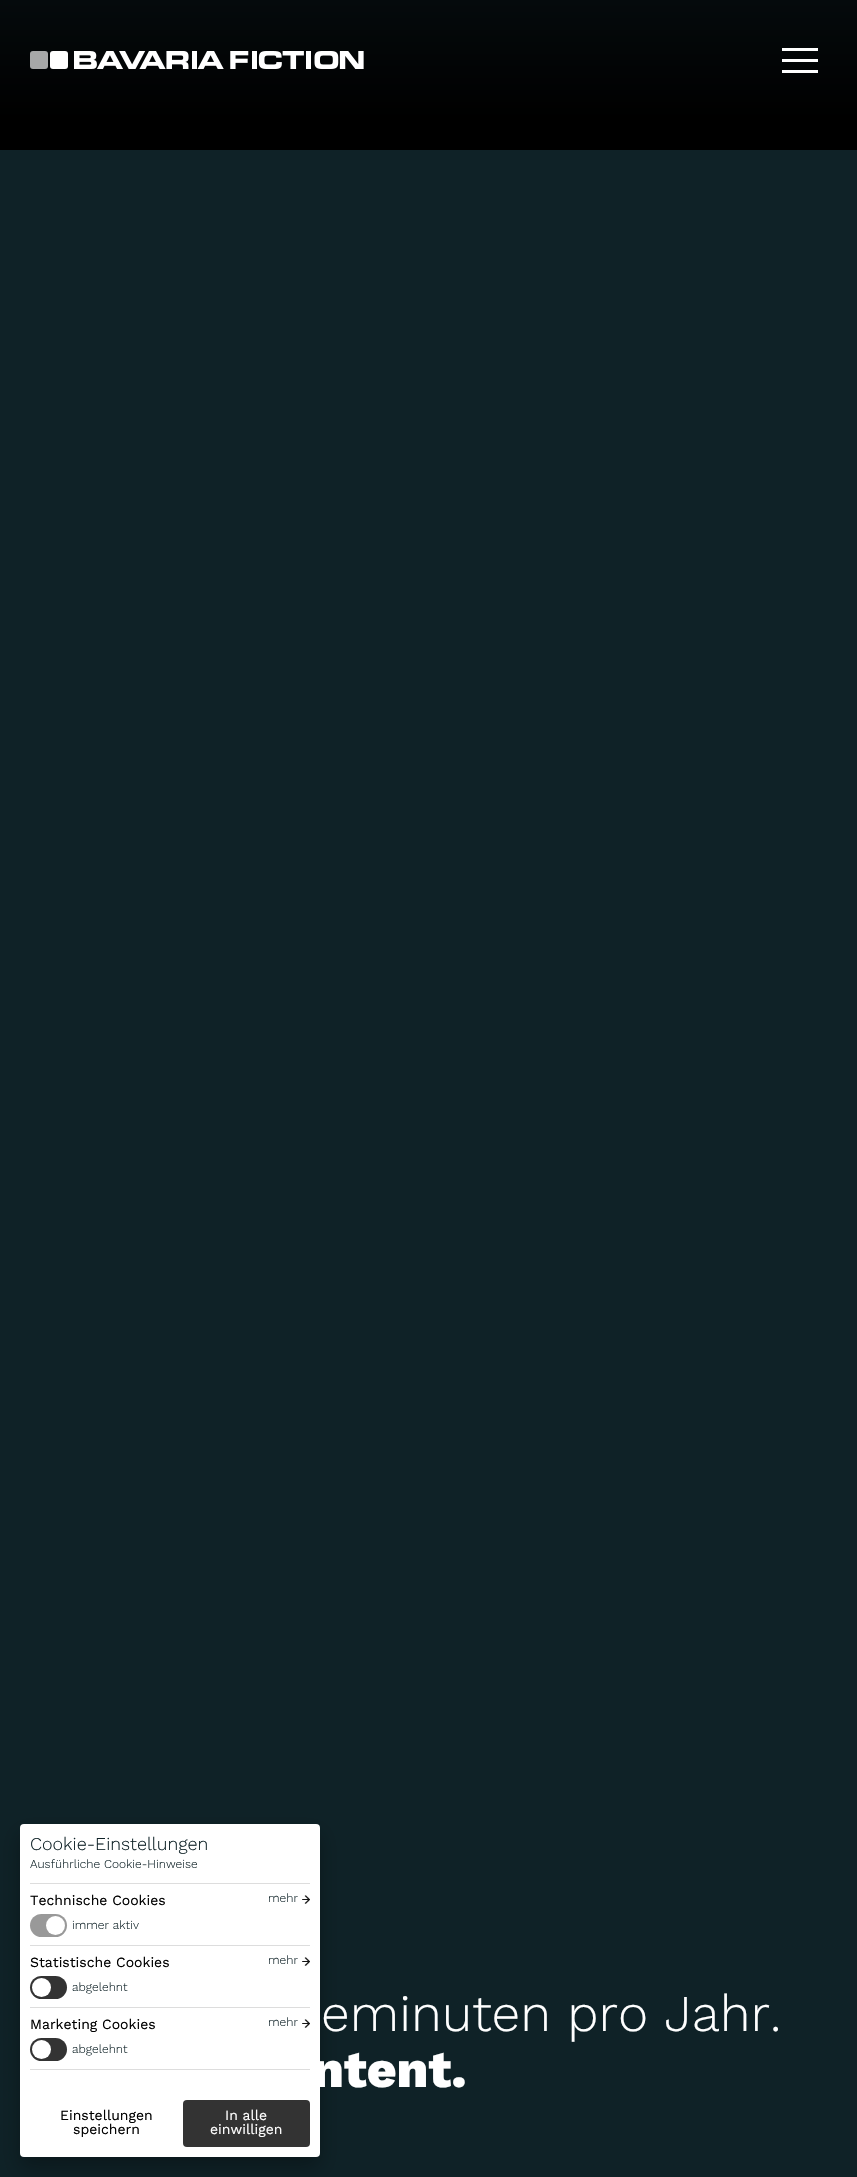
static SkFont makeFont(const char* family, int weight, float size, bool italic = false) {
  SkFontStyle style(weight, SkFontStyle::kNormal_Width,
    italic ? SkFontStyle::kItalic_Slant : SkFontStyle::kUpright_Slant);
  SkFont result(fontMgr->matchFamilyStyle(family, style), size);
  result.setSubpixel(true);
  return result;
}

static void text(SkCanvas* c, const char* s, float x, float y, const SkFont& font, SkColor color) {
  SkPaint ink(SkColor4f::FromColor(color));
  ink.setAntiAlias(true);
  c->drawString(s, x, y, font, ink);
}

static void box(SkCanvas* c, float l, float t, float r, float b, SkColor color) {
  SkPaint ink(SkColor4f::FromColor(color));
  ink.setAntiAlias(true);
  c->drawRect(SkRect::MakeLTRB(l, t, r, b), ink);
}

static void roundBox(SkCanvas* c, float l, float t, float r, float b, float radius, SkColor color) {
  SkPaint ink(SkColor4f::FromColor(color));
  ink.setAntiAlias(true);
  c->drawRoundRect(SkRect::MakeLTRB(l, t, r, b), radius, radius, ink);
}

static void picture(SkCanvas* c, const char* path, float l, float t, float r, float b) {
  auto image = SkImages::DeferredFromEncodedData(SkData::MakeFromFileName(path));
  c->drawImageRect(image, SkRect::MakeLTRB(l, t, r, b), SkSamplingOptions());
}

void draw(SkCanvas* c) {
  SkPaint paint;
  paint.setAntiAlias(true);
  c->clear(0xff0f2227);
  {
    const SkColor colors[] = {0xff050a0c, 0xff000000};
    const float stops[] = {0, 1};
    const SkPoint ends[] = {{429, 0}, {429, 120}};
    paint.setShader(SkGradientShader::MakeLinear(ends, colors, stops, 2, SkTileMode::kClamp));
    paint.setAlpha(255);
  }
  c->drawRect(SkRect::MakeLTRB(0, 0, 857, 120), paint);
  roundBox(c, 50, 51, 68, 69, 3, 0xffffffff);
  roundBox(c, 30, 51, 48, 69, 3, 0xffa7a8a8);
  picture(c, "img_01.png", 74, 51, 364, 69);
  box(c, 782, 48, 818, 51, 0xffffffff);
  box(c, 782, 59, 818, 62, 0xffffffff);
  box(c, 782, 70, 818, 73, 0xffffffff);
  paint.setShader(nullptr);
  paint.setColor(0x4d000000);
  paint.setMaskFilter(SkMaskFilter::MakeBlur(kNormal_SkBlurStyle, 10));
  c->drawRoundRect(SkRect::MakeLTRB(20, 1834, 320, 2167), 4, 4, paint);
  paint.setMaskFilter(nullptr);
  roundBox(c, 20, 1824, 320, 2157, 4, 0xffffffff);
  SkFont face1 = makeFont("Work Sans", 300, 18);
  text(c, "Cookie-Einstellungen", 30, 1850, face1, 0xff0f2227);
  SkFont face2 = makeFont("Work Sans", 300, 12);
  text(c, "Ausführliche Cookie-Hinweise", 30, 1868, face2, 0xff0f2227);
  box(c, 30, 1883, 310, 1884, 0xffdddddd);
  box(c, 30, 1945, 310, 1946, 0xffdddddd);
  SkFont face3 = makeFont("Work Sans", 400, 14);
  text(c, "Technische Cookies", 30, 1905, face3, 0xff000000);
  picture(c, "img_02.png", 302, 1895, 310, 1904);
  text(c, "mehr", 268, 1902, face2, 0xff0f2227);
  roundBox(c, 30, 1914, 67, 1937, 11.5f, 0xff999999);
  paint.setColor(0xffffffff);
  c->drawCircle(55.5f, 1925.5f, 9.5f, paint);
  text(c, "immer aktiv", 72, 1929, face2, 0xff0f2227);
  box(c, 30, 2007, 310, 2008, 0xffdddddd);
  text(c, "Statistische Cookies", 30, 1967, face3, 0xff000000);
  picture(c, "img_02.png", 302, 1957, 310, 1966);
  text(c, "mehr", 268, 1964, face2, 0xff0f2227);
  roundBox(c, 30, 1976, 67, 1999, 11.5f, 0xff333333);
  c->drawCircle(41.5f, 1987.5f, 9.5f, paint);
  text(c, "abgelehnt", 72, 1991, face2, 0xff0f2227);
  box(c, 30, 2069, 310, 2070, 0xffdddddd);
  text(c, "Marketing Cookies", 30, 2029, face3, 0xff000000);
  picture(c, "img_02.png", 302, 2019, 310, 2028);
  text(c, "mehr", 268, 2026, face2, 0xff0f2227);
  roundBox(c, 30, 2038, 67, 2061, 11.5f, 0xff333333);
  c->drawCircle(41.5f, 2049.5f, 9.5f, paint);
  text(c, "abgelehnt", 72, 2053, face2, 0xff0f2227);
  text(c, "Einstellungen", 60, 2120, face3, 0xff000000);
  text(c, "speichern", 73, 2134, face3, 0xff000000);
  roundBox(c, 183, 2100, 310, 2147, 4, 0xff333333);
  text(c, "In alle", 225, 2120, face3, 0xffffffff);
  text(c, "einwilligen", 210, 2134, face3, 0xffffffff);
  box(c, 0, 120, 857, 150, 0xff000000);
  SkFont face4 = makeFont("Work Sans", 300, 51.5f);
  text(c, "eminuten pro Jahr.", 321, 2031, face4, 0xffffffff);
  SkFont face5 = makeFont("Work Sans", 800, 51.5f);
  text(c, "ntent.", 312, 2087, face5, 0xffffffff);
}
